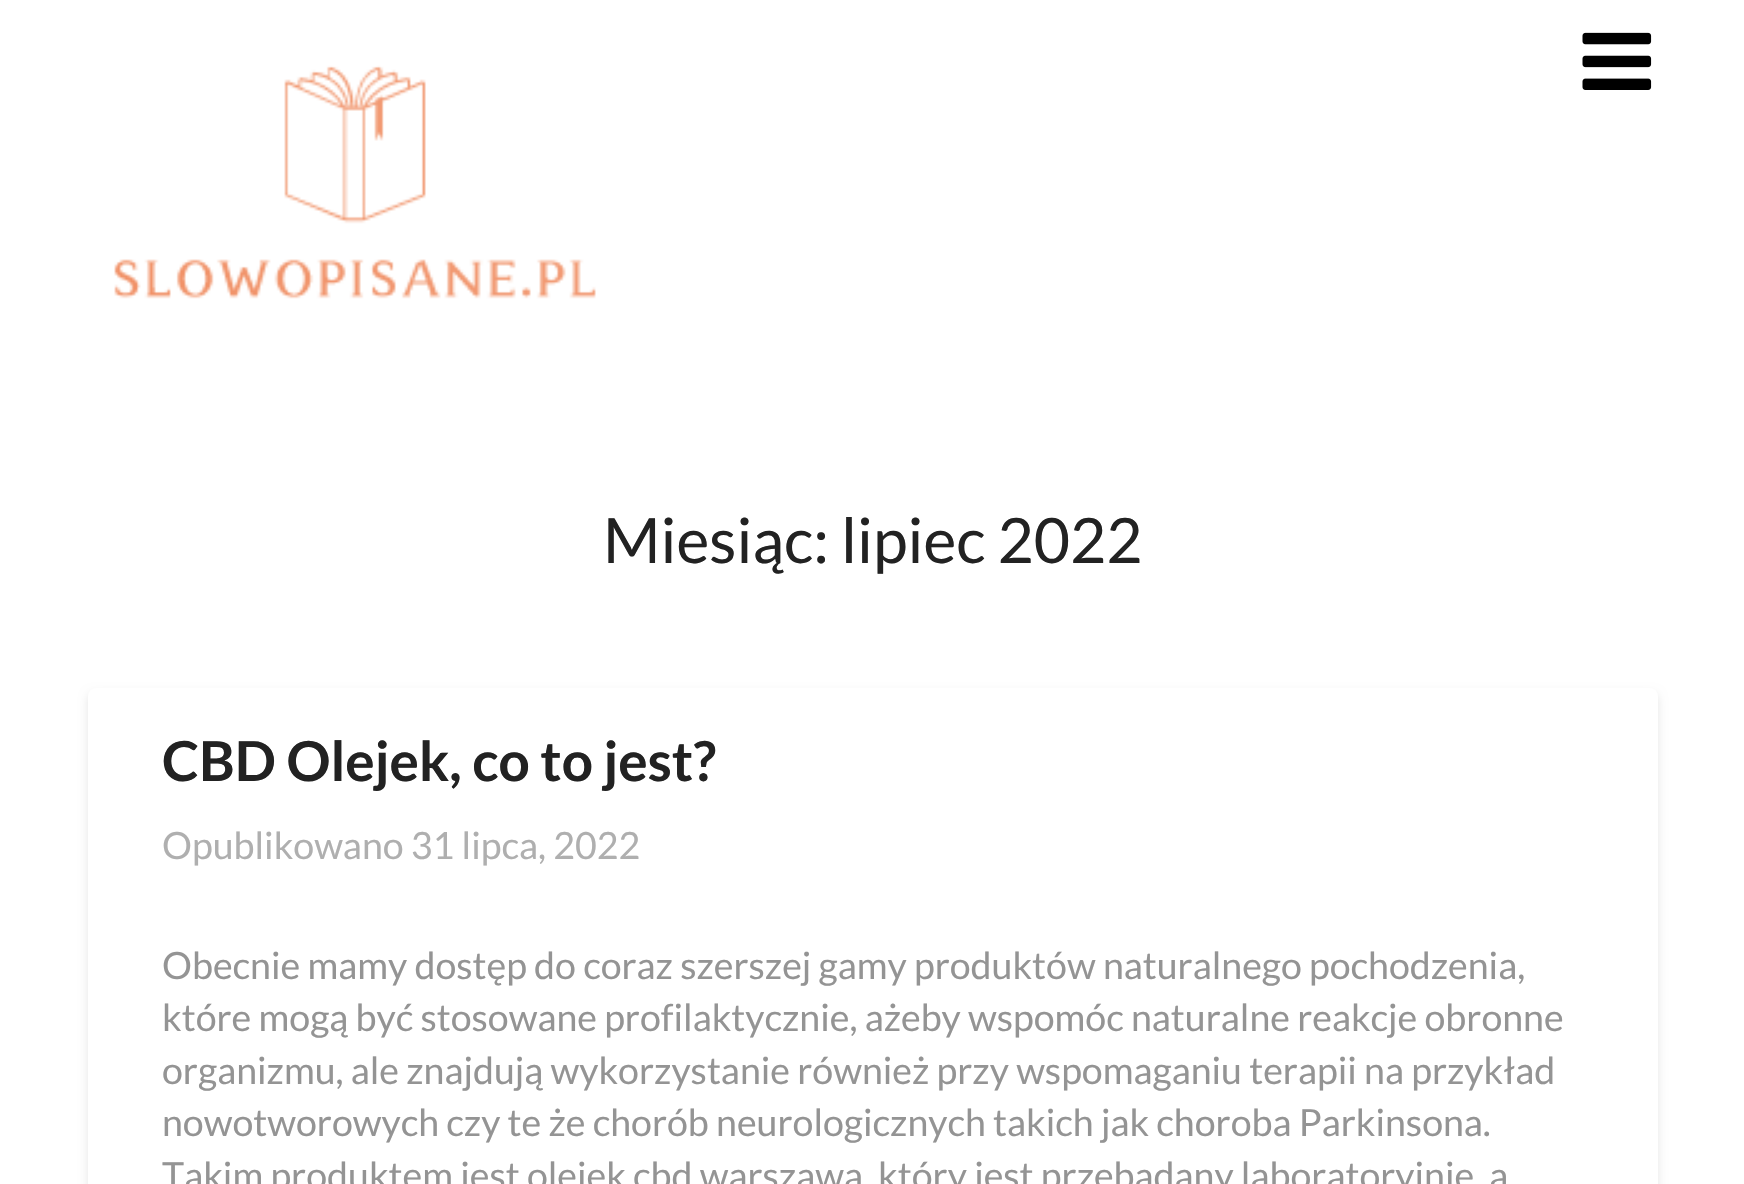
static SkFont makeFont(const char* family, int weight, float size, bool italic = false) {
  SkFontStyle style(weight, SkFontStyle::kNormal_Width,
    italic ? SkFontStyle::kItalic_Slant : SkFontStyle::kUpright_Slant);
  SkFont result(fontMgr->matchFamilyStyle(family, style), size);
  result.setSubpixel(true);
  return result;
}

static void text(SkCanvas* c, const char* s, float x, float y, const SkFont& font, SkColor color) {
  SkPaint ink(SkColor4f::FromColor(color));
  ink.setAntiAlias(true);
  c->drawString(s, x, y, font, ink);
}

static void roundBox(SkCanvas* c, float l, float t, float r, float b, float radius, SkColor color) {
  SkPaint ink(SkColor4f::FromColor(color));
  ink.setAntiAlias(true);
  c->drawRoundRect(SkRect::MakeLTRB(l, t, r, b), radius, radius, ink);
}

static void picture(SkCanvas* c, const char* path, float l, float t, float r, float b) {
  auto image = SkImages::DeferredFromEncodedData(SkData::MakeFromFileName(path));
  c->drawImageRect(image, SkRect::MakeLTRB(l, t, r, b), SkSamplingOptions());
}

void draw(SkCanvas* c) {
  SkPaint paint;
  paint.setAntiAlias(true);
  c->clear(0xffffffff);
  picture(c, "img_01.png", 114, 65, 596, 299);
  picture(c, "img_02.png", 1582, 32, 1652, 90);
  SkFont face1 = makeFont("Lato", 400, 62.5f);
  text(c, "Miesiąc: lipiec 2022", 603, 563, face1, 0xff222222);
  paint.setColor(0x1a000000);
  paint.setMaskFilter(SkMaskFilter::MakeBlur(kNormal_SkBlurStyle, 5));
  c->drawRoundRect(SkRect::MakeLTRB(88, 693, 1658, 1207), 8, 8, paint);
  paint.setMaskFilter(nullptr);
  roundBox(c, 88, 688, 1658, 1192, 8, 0xffffffff);
  SkFont face2 = makeFont("Lato", 700, 55);
  text(c, "CBD Olejek, co to jest?", 162, 781, face2, 0xff222222);
  SkFont face3 = makeFont("Lato", 400, 37.5f);
  text(c, "Opublikowano 31 lipca, 2022", 162, 859, face3, 0xffafafaf);
  text(c, "Obecnie mamy dostęp do coraz szerszej gamy produktów naturalnego pochodzenia,", 162, 979, face3, 0xff949494);
  text(c, "które mogą być stosowane profilaktycznie, ażeby wspomóc naturalne reakcje obronne", 162, 1031, face3, 0xff949494);
  text(c, "organizmu, ale znajdują wykorzystanie również przy wspomaganiu terapii na przykład", 162, 1084, face3, 0xff949494);
  text(c, "nowotworowych czy te że chorób neurologicznych takich jak choroba Parkinsona.", 162, 1136, face3, 0xff949494);
  text(c, "Takim produktem jest olejek cbd warszawa, który jest przebadany laboratoryjnie, a", 162, 1189, face3, 0xff949494);
}
